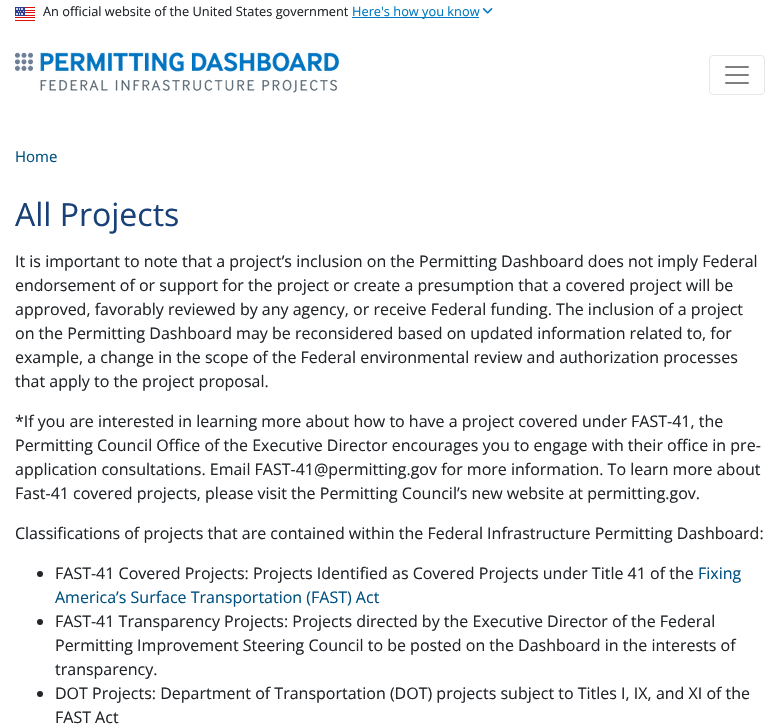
static SkFont makeFont(const char* family, int weight, float size, bool italic = false) {
  SkFontStyle style(weight, SkFontStyle::kNormal_Width,
    italic ? SkFontStyle::kItalic_Slant : SkFontStyle::kUpright_Slant);
  SkFont result(fontMgr->matchFamilyStyle(family, style), size);
  result.setSubpixel(true);
  return result;
}

static void text(SkCanvas* c, const char* s, float x, float y, const SkFont& font, SkColor color) {
  SkPaint ink(SkColor4f::FromColor(color));
  ink.setAntiAlias(true);
  c->drawString(s, x, y, font, ink);
}

static void box(SkCanvas* c, float l, float t, float r, float b, SkColor color) {
  SkPaint ink(SkColor4f::FromColor(color));
  ink.setAntiAlias(true);
  c->drawRect(SkRect::MakeLTRB(l, t, r, b), ink);
}

static void picture(SkCanvas* c, const char* path, float l, float t, float r, float b) {
  auto image = SkImages::DeferredFromEncodedData(SkData::MakeFromFileName(path));
  c->drawImageRect(image, SkRect::MakeLTRB(l, t, r, b), SkSamplingOptions());
}

void draw(SkCanvas* c) {
  SkPaint paint;
  paint.setAntiAlias(true);
  c->clear(0xffffffff);
  picture(c, "img_01.png", 15, 7, 35, 21);
  SkFont face1 = makeFont("Open Sans", 400, 12.8f);
  text(c, "An official website of the United States government", 43, 16, face1, 0xff212529);
  box(c, 352, 17, 479, 18, 0xff0079c0);
  text(c, "Here's how you know", 352, 16, face1, 0xff0079c0);
  picture(c, "img_02.png", 482, 8, 493, 14);
  picture(c, "img_03.png", 15, 52, 339, 93);
  paint.setStyle(SkPaint::kStroke_Style);
  paint.setStrokeWidth(1);
  paint.setColor(0xffe6e6e6);
  c->drawRoundRect(SkRect::MakeLTRB(709.5f, 55.5f, 764.5f, 94.5f), 3.5f, 3.5f, paint);
  picture(c, "img_04.png", 725, 66, 749, 84);
  SkFont face2 = makeFont("Open Sans", 400, 15);
  text(c, "Home", 15, 162, face2, 0xff005180);
  SkFont face3 = makeFont("Open Sans", 400, 32);
  text(c, "All Projects", 15, 226, face3, 0xff194178);
  SkFont face4 = makeFont("Open Sans", 400, 16);
  text(c, "It is important to note that a project’s inclusion on the Permitting Dashboard does not imply Federal", 15, 267, face4, 0xff212529);
  text(c, "endorsement of or support for the project or create a presumption that a covered project will be", 15, 291, face4, 0xff212529);
  text(c, "approved, favorably reviewed by any agency, or receive Federal funding. The inclusion of a project", 15, 315, face4, 0xff212529);
  text(c, "on the Permitting Dashboard may be reconsidered based on updated information related to, for", 15, 339, face4, 0xff212529);
  text(c, "example, a change in the scope of the Federal environmental review and authorization processes", 15, 363, face4, 0xff212529);
  text(c, "that apply to the project proposal.", 15, 387, face4, 0xff212529);
  text(c, "*If you are interested in learning more about how to have a project covered under FAST-41, the", 15, 427, face4, 0xff212529);
  text(c, "Permitting Council Office of the Executive Director encourages you to engage with their office in pre-", 15, 451, face4, 0xff212529);
  text(c, "application consultations. Email FAST-41@permitting.gov for more information. To learn more about", 15, 475, face4, 0xff212529);
  text(c, "Fast-41 covered projects, please visit the Permitting Council’s new website at permitting.gov.", 15, 499, face4, 0xff212529);
  text(c, "Classifications of projects that are contained within the Federal Infrastructure Permitting Dashboard:", 15, 539, face4, 0xff212529);
  paint.setStyle(SkPaint::kFill_Style);
  paint.setColor(0xff212529);
  c->drawCircle(40, 574, 3, paint);
  text(c, "FAST-41 Covered Projects: Projects Identified as Covered Projects under Title 41 of the", 55, 579, face4, 0xff212529);
  text(c, "Fixing", 698, 579, face4, 0xff005180);
  text(c, "America’s Surface Transportation (FAST) Act", 55, 603, face4, 0xff005180);
  c->drawCircle(40, 622, 3, paint);
  text(c, "FAST-41 Transparency Projects: Projects directed by the Executive Director of the Federal", 55, 627, face4, 0xff212529);
  text(c, "Permitting Improvement Steering Council to be posted on the Dashboard in the interests of", 55, 651, face4, 0xff212529);
  text(c, "transparency.", 55, 675, face4, 0xff212529);
  c->drawCircle(40, 694, 3, paint);
  text(c, "DOT Projects: Department of Transportation (DOT) projects subject to Titles I, IX, and XI of the", 55, 699, face4, 0xff212529);
  text(c, "FAST Act", 55, 723, face4, 0xff212529);
}
